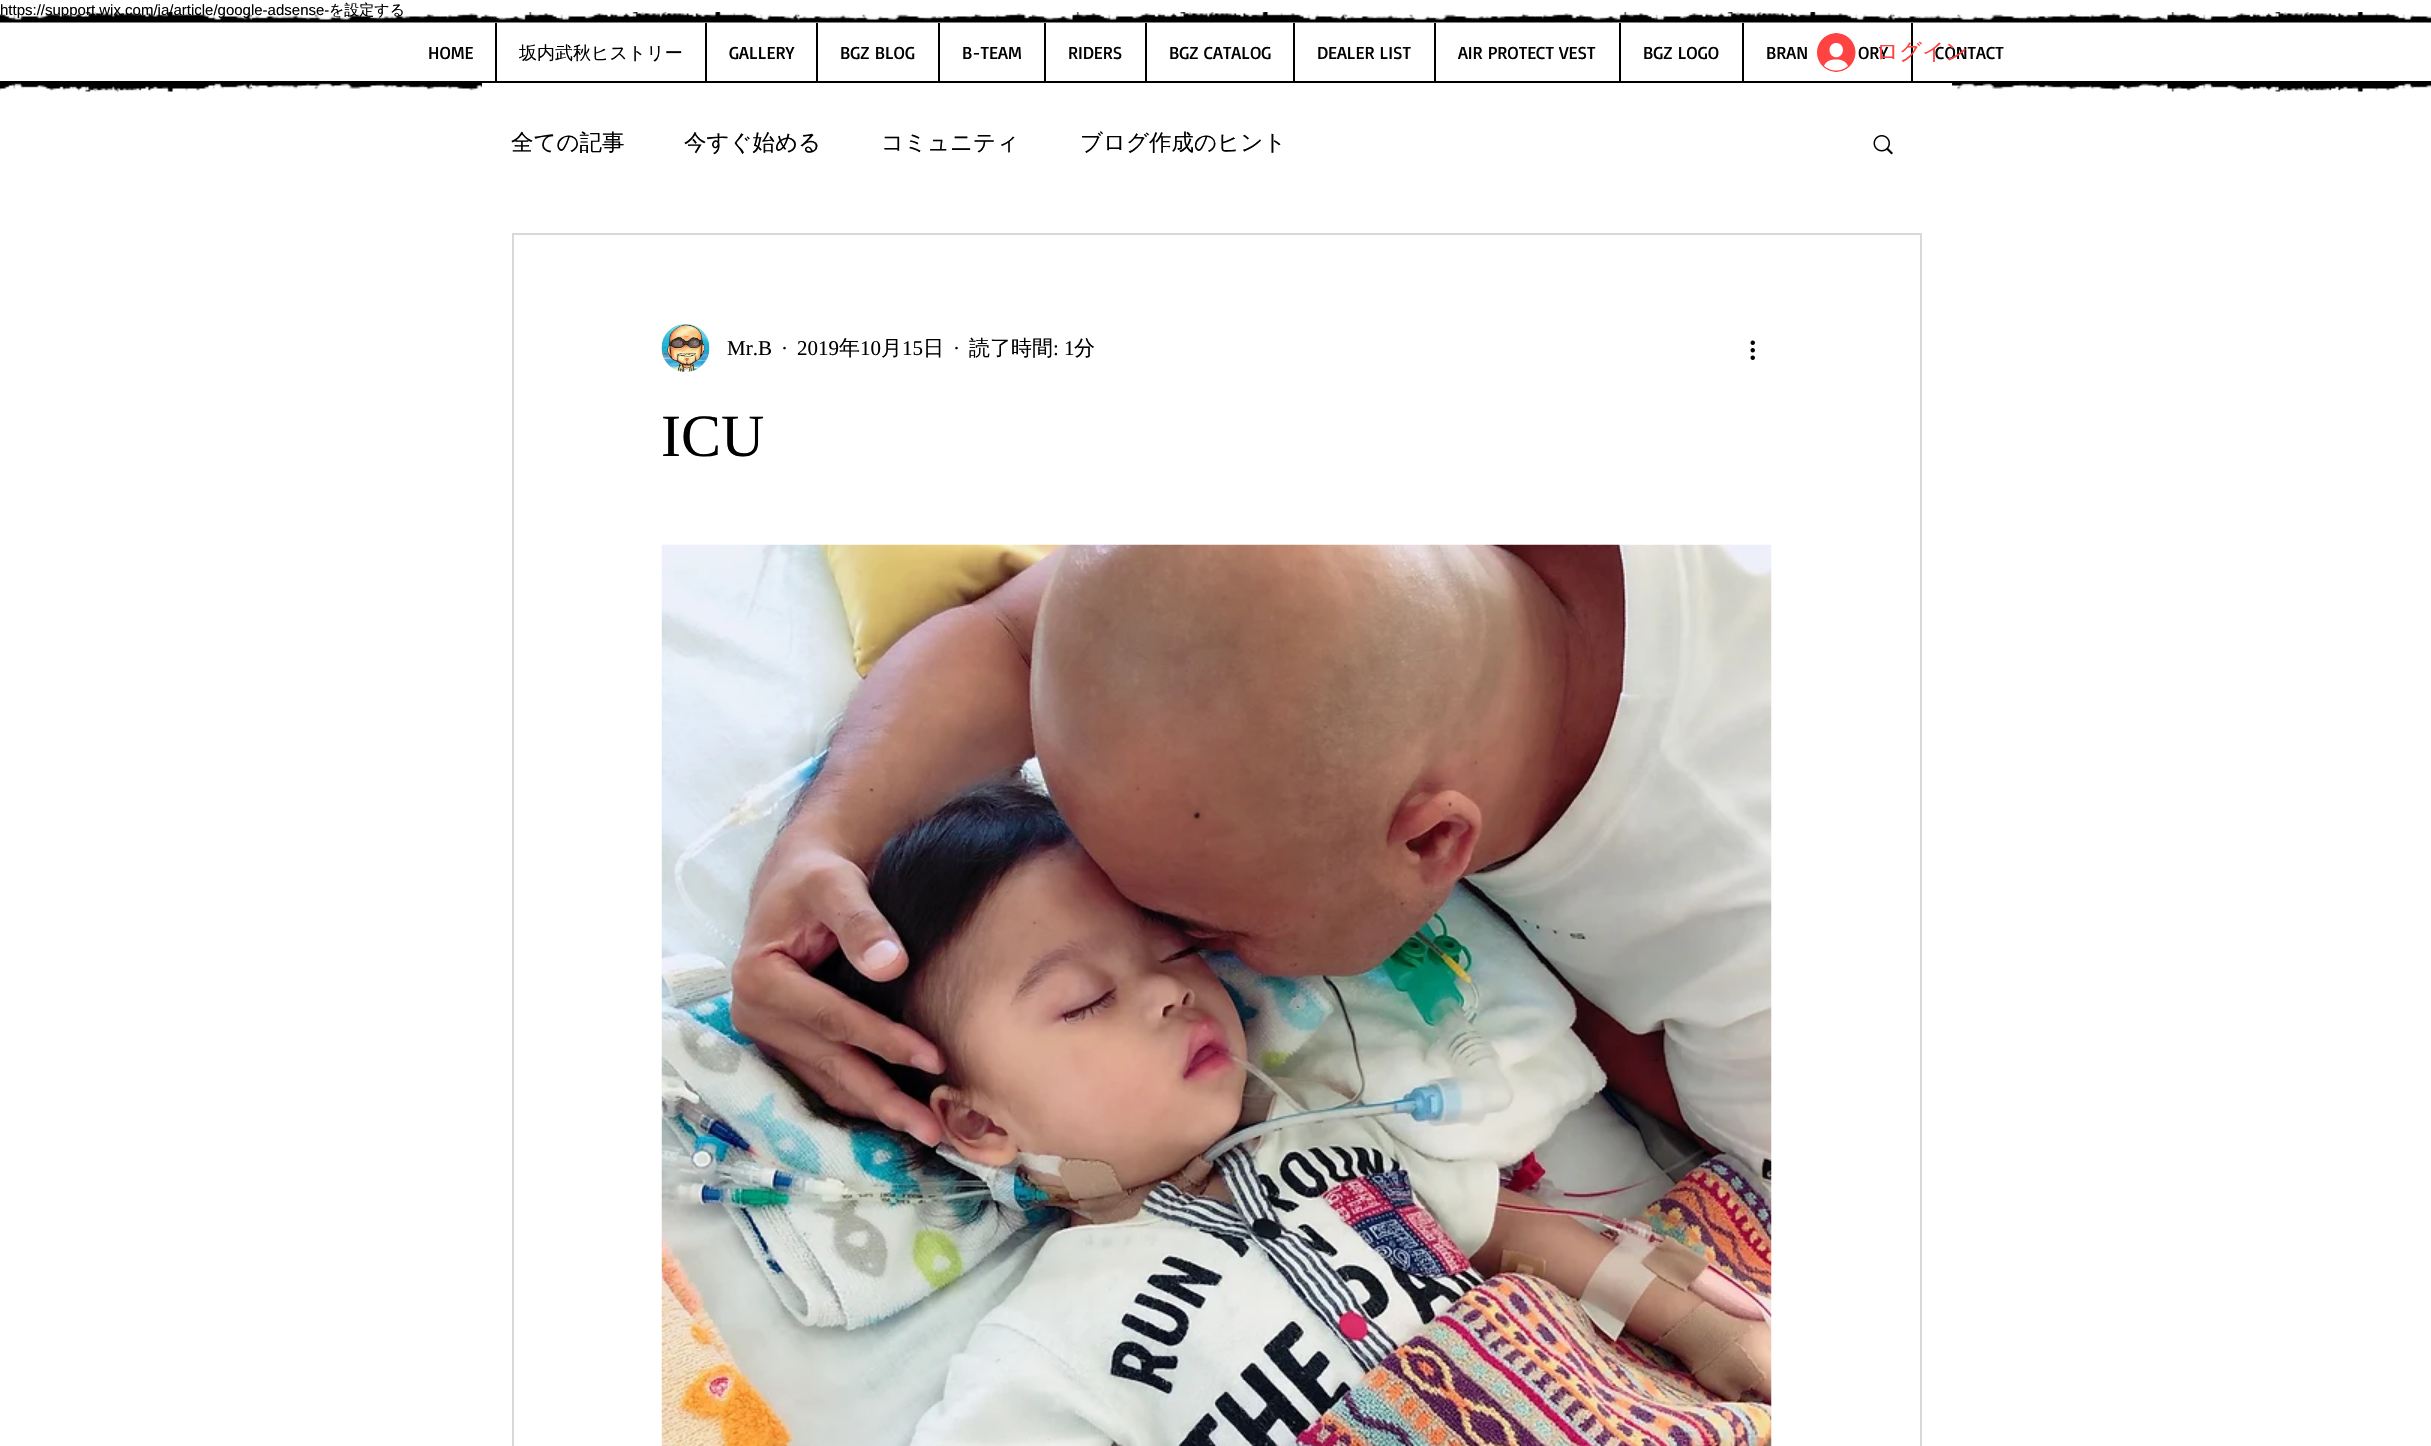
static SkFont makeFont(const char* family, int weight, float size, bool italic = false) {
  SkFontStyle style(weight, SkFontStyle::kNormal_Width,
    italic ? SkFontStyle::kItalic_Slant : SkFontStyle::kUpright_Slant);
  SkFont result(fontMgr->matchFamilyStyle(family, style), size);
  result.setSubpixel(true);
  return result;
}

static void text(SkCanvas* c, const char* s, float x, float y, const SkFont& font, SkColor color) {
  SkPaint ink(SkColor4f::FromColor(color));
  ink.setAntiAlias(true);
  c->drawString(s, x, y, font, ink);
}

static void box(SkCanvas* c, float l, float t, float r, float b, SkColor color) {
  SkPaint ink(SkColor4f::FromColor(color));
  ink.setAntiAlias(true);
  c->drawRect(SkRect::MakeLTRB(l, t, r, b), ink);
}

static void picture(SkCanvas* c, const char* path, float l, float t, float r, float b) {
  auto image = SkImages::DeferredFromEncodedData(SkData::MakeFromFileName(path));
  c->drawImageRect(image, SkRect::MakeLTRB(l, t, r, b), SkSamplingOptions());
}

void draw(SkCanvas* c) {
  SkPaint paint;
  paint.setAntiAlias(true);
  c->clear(0xffffffff);
  SkFont face1 = makeFont("Liberation Sans", 400, 15);
  text(c, "https://support.wix.com/ja/article/google-adsense-", 0, 15, face1, 0xff000000);
  SkFont face2 = makeFont("WenQuanYi Zen Hei", 500, 15);
  text(c, "を設定する", 329, 15, face2, 0xff000000);
  picture(c, "img_01.png", 1817, 33, 1856, 72);
  SkFont face3 = makeFont("Basic", 400, 18);
  text(c, "ORY", 1858, 59, face3, 0xff000000);
  box(c, 1911, 23, 1913, 81, 0xff000000);
  text(c, "CONTACT", 1935, 59, face3, 0xff000000);
  SkFont face4 = makeFont("WenQuanYi Zen Hei", 500, 22.5f);
  text(c, "ログイン", 1876, 59, face4, 0xffff4242);
  picture(c, "img_02.png", 0, 12, 2431, 23);
  text(c, "HOME", 428, 59, face3, 0xff000000);
  box(c, 495, 23, 497, 81, 0xff000000);
  SkFont face5 = makeFont("WenQuanYi Zen Hei", 500, 18);
  text(c, "坂内武秋ヒストリー", 519, 59, face5, 0xff000000);
  box(c, 705, 23, 707, 81, 0xff000000);
  text(c, "GALLERY", 729, 59, face3, 0xff000000);
  box(c, 816, 23, 818, 81, 0xff000000);
  text(c, "BGZ BLOG", 840, 59, face3, 0xff000000);
  box(c, 938, 23, 940, 81, 0xff000000);
  text(c, "B-TEAM", 962, 59, face3, 0xff000000);
  box(c, 1044, 23, 1046, 81, 0xff000000);
  text(c, "RIDERS", 1068, 59, face3, 0xff000000);
  box(c, 1145, 23, 1147, 81, 0xff000000);
  text(c, "BGZ CATALOG", 1169, 59, face3, 0xff000000);
  box(c, 1293, 23, 1295, 81, 0xff000000);
  text(c, "DEALER LIST", 1317, 59, face3, 0xff000000);
  box(c, 1434, 23, 1436, 81, 0xff000000);
  text(c, "AIR PROTECT VEST", 1458, 59, face3, 0xff000000);
  box(c, 1619, 23, 1621, 81, 0xff000000);
  text(c, "BGZ LOGO", 1643, 59, face3, 0xff000000);
  box(c, 1742, 23, 1744, 81, 0xff000000);
  text(c, "BRAN", 1766, 59, face3, 0xff000000);
  picture(c, "img_03.png", 0, 81, 2431, 92);
  box(c, 482, 83, 1952, 92, 0xffffffff);
  text(c, "全ての記事", 511, 150, face4, 0xff000000);
  text(c, "今すぐ始める", 684, 150, face4, 0xff000000);
  text(c, "コミュニティ", 881, 150, face4, 0xff000000);
  text(c, "ブログ作成のヒント", 1080, 150, face4, 0xff000000);
  picture(c, "img_04.png", 1873, 135, 1893, 155);
  paint.setStyle(SkPaint::kStroke_Style);
  paint.setStrokeWidth(2);
  paint.setColor(0xffd9d9d9);
  c->drawRect(SkRect::MakeLTRB(513, 234, 1921, 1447), paint);
  picture(c, "img_05.png", 661, 324, 710, 372);
  SkFont face6 = makeFont("Liberation Serif", 400, 21);
  text(c, "Mr.B", 727, 355, face6, 0xff000000);
  text(c, "·", 781, 355, face6, 0xff000000);
  text(c, "2019", 797, 355, face6, 0xff000000);
  SkFont face7 = makeFont("WenQuanYi Zen Hei", 500, 21);
  text(c, "年", 839, 355, face7, 0xff000000);
  text(c, "10", 860, 355, face6, 0xff000000);
  text(c, "月", 881, 355, face7, 0xff000000);
  text(c, "15", 902, 355, face6, 0xff000000);
  text(c, "日", 923, 355, face7, 0xff000000);
  text(c, "·", 953, 355, face6, 0xff000000);
  text(c, "読了時間", 969, 355, face7, 0xff000000);
  text(c, ": 1", 1053, 355, face6, 0xff000000);
  text(c, "分", 1074, 355, face7, 0xff000000);
  picture(c, "img_06.png", 1750, 340, 1755, 360);
  SkFont face8 = makeFont("Liberation Serif", 400, 60);
  text(c, "ICU", 661, 456, face8, 0xff000000);
  picture(c, "img_07.png", 661, 544, 1772, 1446);
}
